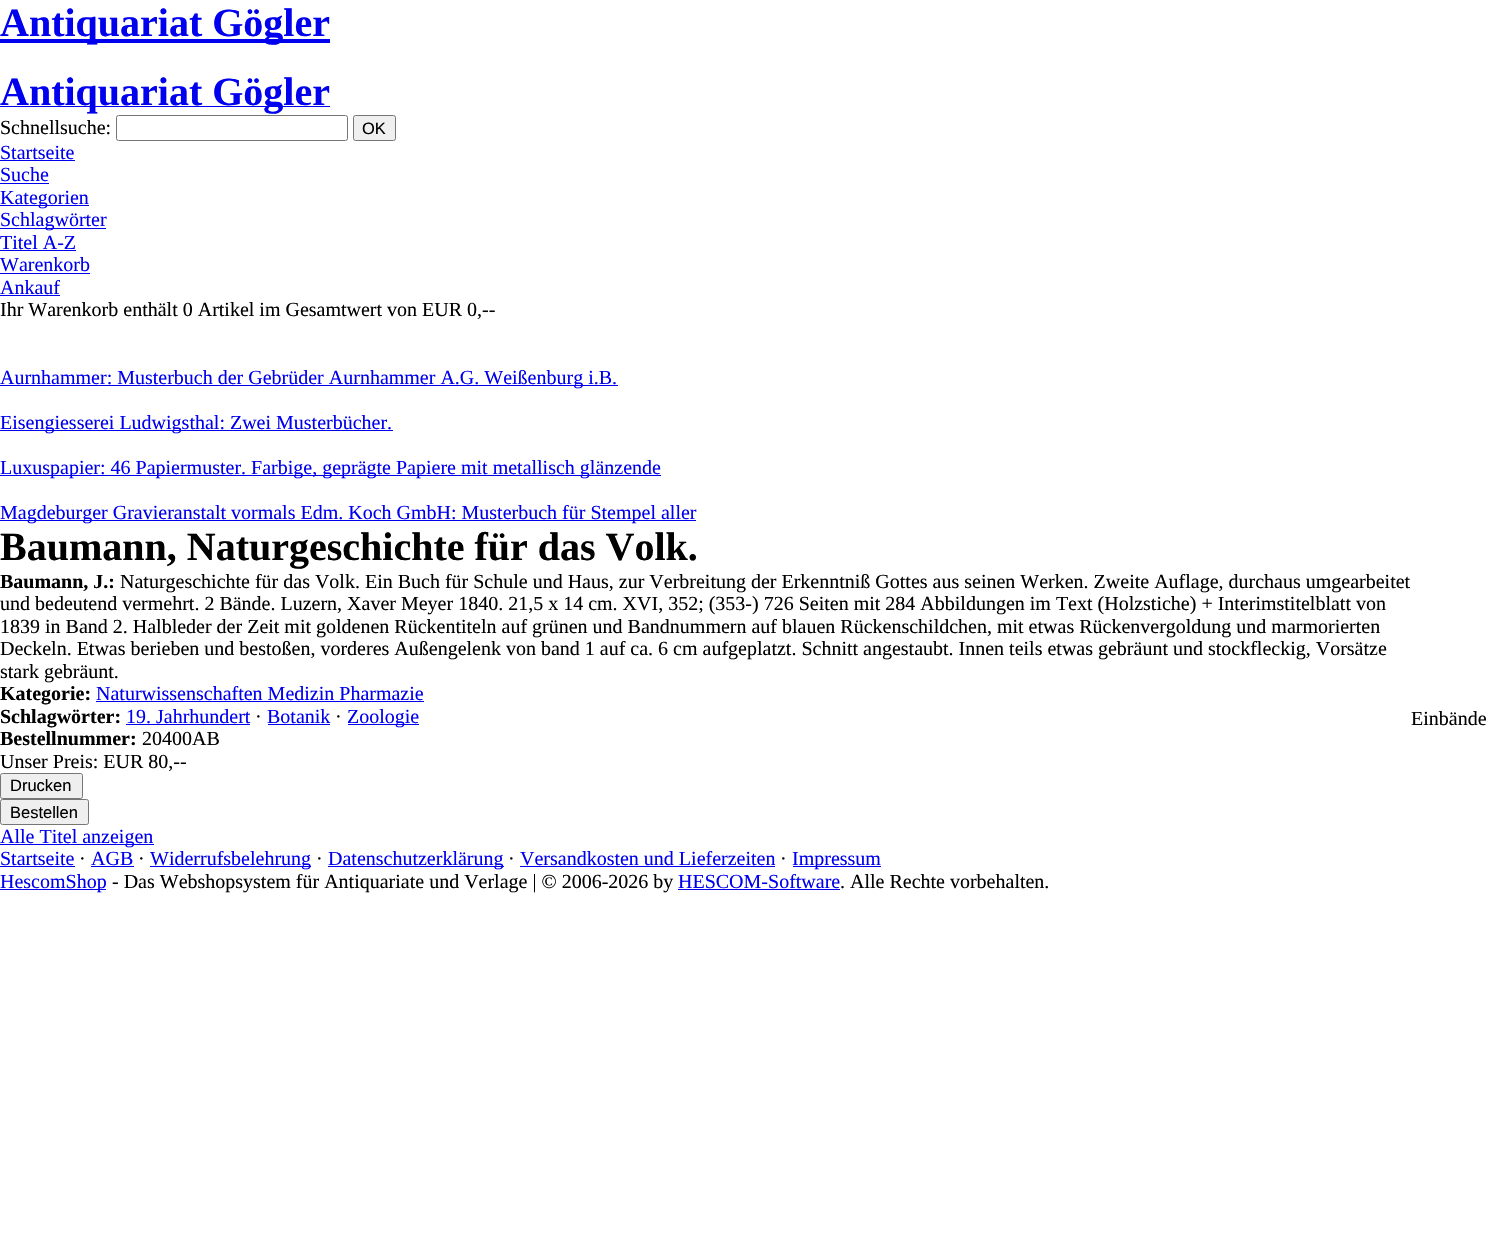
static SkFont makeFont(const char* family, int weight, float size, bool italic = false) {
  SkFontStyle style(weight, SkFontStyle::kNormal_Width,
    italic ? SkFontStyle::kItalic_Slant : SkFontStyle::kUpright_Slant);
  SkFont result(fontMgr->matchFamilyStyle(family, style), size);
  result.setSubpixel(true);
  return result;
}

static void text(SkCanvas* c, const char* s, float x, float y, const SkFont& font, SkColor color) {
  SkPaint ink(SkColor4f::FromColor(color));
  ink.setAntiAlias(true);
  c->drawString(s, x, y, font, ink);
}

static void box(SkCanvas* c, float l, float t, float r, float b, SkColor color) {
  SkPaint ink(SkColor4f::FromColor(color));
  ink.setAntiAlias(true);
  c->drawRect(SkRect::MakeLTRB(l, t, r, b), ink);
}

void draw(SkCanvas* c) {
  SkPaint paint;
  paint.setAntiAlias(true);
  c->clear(0xffffffff);
  box(c, 0, 39, 330, 43, 0xff0000ee);
  SkFont face1 = makeFont("Liberation Serif", 700, 40);
  text(c, "Antiquariat Gögler", 0, 36, face1, 0xff0000ee);
  box(c, 0, 106, 330, 107, 0xff0000ee);
  text(c, "Antiquariat Gögler", 0, 105, face1, 0xff0000ee);
  SkFont face2 = makeFont("Liberation Serif", 400, 20);
  text(c, "Schnellsuche:", 0, 134, face2, 0xff000000);
  paint.setStyle(SkPaint::kStroke_Style);
  paint.setStrokeWidth(1);
  paint.setColor(0xff767676);
  c->drawRoundRect(SkRect::MakeLTRB(116.5f, 115.5f, 347.5f, 140.5f), 2, 2, paint);
  paint.setStyle(SkPaint::kFill_Style);
  paint.setColor(0xffefefef);
  c->drawRoundRect(SkRect::MakeLTRB(353.5f, 115.5f, 395.5f, 140.5f), 2, 2, paint);
  paint.setStyle(SkPaint::kStroke_Style);
  paint.setColor(0xff767676);
  c->drawRoundRect(SkRect::MakeLTRB(353.5f, 115.5f, 395.5f, 140.5f), 2, 2, paint);
  SkFont face3 = makeFont("Liberation Sans", 400, 16.5f);
  text(c, "OK", 362, 134, face3, 0xff000000);
  text(c, "Startseite", 0, 159, face2, 0xff0000ee);
  box(c, 0, 160, 75, 161, 0xff0000ee);
  text(c, "Suche", 0, 181, face2, 0xff0000ee);
  box(c, 0, 183, 49, 184, 0xff0000ee);
  box(c, 0, 205, 89, 206, 0xff0000ee);
  text(c, "Kategorien", 0, 204, face2, 0xff0000ee);
  box(c, 0, 228, 106, 229, 0xff0000ee);
  text(c, "Schlagwörter", 0, 226, face2, 0xff0000ee);
  text(c, "Titel A-Z", 0, 249, face2, 0xff0000ee);
  box(c, 0, 250, 76, 251, 0xff0000ee);
  text(c, "Warenkorb", 0, 271, face2, 0xff0000ee);
  box(c, 0, 273, 90, 274, 0xff0000ee);
  text(c, "Ankauf", 0, 294, face2, 0xff0000ee);
  box(c, 0, 295, 60, 296, 0xff0000ee);
  text(c, "Ihr Warenkorb enthält 0 Artikel im Gesamtwert von EUR 0,--", 0, 316, face2, 0xff000000);
  box(c, 0, 385, 618, 386, 0xff0000ee);
  text(c, "Aurnhammer: Musterbuch der Gebrüder Aurnhammer A.G. Weißenburg i.B.", 0, 384, face2, 0xff0000ee);
  box(c, 0, 430, 393, 431, 0xff0000ee);
  text(c, "Eisengiesserei Ludwigsthal: Zwei Musterbücher.", 0, 429, face2, 0xff0000ee);
  box(c, 0, 475, 661, 476, 0xff0000ee);
  text(c, "Luxuspapier: 46 Papiermuster. Farbige, geprägte Papiere mit metallisch glänzende", 0, 474, face2, 0xff0000ee);
  box(c, 0, 520, 696, 521, 0xff0000ee);
  text(c, "Magdeburger Gravieranstalt vormals Edm. Koch GmbH: Musterbuch für Stempel aller", 0, 519, face2, 0xff0000ee);
  text(c, "Baumann, Naturgeschichte für das Volk.", 0, 560, face1, 0xff000000);
  SkFont face4 = makeFont("Liberation Serif", 700, 20);
  text(c, "Baumann, J.:", 0, 588, face4, 0xff000000);
  text(c, "Naturgeschichte für das Volk. Ein Buch für Schule und Haus, zur Verbreitung der Erkenntniß Gottes aus seinen Werken. Zweite Auflage, durchaus umgearbeitet", 120, 588, face2, 0xff000000);
  text(c, "und bedeutend vermehrt. 2 Bände. Luzern, Xaver Meyer 1840. 21,5 x 14 cm. XVI, 352; (353-) 726 Seiten mit 284 Abbildungen im Text (Holzstiche) + Interimstitelblatt von", 0, 610, face2, 0xff000000);
  text(c, "1839 in Band 2. Halbleder der Zeit mit goldenen Rückentiteln auf grünen und Bandnummern auf blauen Rückenschildchen, mit etwas Rückenvergoldung und marmorierten", 0, 633, face2, 0xff000000);
  text(c, "Deckeln. Etwas berieben und bestoßen, vorderes Außengelenk von band 1 auf ca. 6 cm aufgeplatzt. Schnitt angestaubt. Innen teils etwas gebräunt und stockfleckig, Vorsätze", 0, 655, face2, 0xff000000);
  text(c, "stark gebräunt.", 0, 678, face2, 0xff000000);
  text(c, "Kategorie:", 0, 700, face4, 0xff000000);
  text(c, "Naturwissenschaften Medizin Pharmazie", 96, 700, face2, 0xff0000ee);
  box(c, 96, 701, 424, 702, 0xff0000ee);
  text(c, "Schlagwörter:", 0, 723, face4, 0xff000000);
  text(c, "19. Jahrhundert", 126, 723, face2, 0xff0000ee);
  box(c, 126, 724, 250, 725, 0xff0000ee);
  text(c, "·", 255, 723, face2, 0xff000000);
  text(c, "Botanik", 267, 723, face2, 0xff0000ee);
  box(c, 268, 724, 330, 725, 0xff0000ee);
  text(c, "·", 335, 723, face2, 0xff000000);
  box(c, 348, 724, 419, 725, 0xff0000ee);
  text(c, "Zoologie", 347, 723, face2, 0xff0000ee);
  text(c, "Bestellnummer:", 0, 745, face4, 0xff000000);
  text(c, "20400AB", 142, 745, face2, 0xff000000);
  text(c, "Unser Preis: EUR 80,--", 0, 768, face2, 0xff000000);
  paint.setStyle(SkPaint::kFill_Style);
  paint.setColor(0xffefefef);
  c->drawRoundRect(SkRect::MakeLTRB(0.5f, 773.5f, 82.5f, 798.5f), 2, 2, paint);
  paint.setStyle(SkPaint::kStroke_Style);
  paint.setColor(0xff767676);
  c->drawRoundRect(SkRect::MakeLTRB(0.5f, 773.5f, 82.5f, 798.5f), 2, 2, paint);
  text(c, "Drucken", 10, 791, face3, 0xff000000);
  paint.setStyle(SkPaint::kFill_Style);
  paint.setColor(0xffefefef);
  c->drawRoundRect(SkRect::MakeLTRB(0.5f, 799.5f, 88.5f, 824.5f), 2, 2, paint);
  paint.setStyle(SkPaint::kStroke_Style);
  paint.setColor(0xff767676);
  c->drawRoundRect(SkRect::MakeLTRB(0.5f, 799.5f, 88.5f, 824.5f), 2, 2, paint);
  text(c, "Bestellen", 10, 818, face3, 0xff000000);
  text(c, "Einbände", 1411, 725, face2, 0xff000000);
  box(c, 0, 844, 154, 845, 0xff0000ee);
  text(c, "Alle Titel anzeigen", 0, 843, face2, 0xff0000ee);
  text(c, "Startseite", 0, 865, face2, 0xff0000ee);
  box(c, 0, 866, 75, 867, 0xff0000ee);
  text(c, "·", 79, 865, face2, 0xff000000);
  text(c, "AGB", 91, 865, face2, 0xff0000ee);
  box(c, 91, 866, 134, 867, 0xff0000ee);
  text(c, "·", 138, 865, face2, 0xff000000);
  box(c, 150, 866, 311, 867, 0xff0000ee);
  text(c, "Widerrufsbelehrung", 150, 865, face2, 0xff0000ee);
  text(c, "·", 316, 865, face2, 0xff000000);
  box(c, 328, 866, 504, 867, 0xff0000ee);
  text(c, "Datenschutzerklärung", 328, 865, face2, 0xff0000ee);
  text(c, "·", 508, 865, face2, 0xff000000);
  text(c, "Versandkosten und Lieferzeiten", 520, 865, face2, 0xff0000ee);
  box(c, 520, 866, 775, 867, 0xff0000ee);
  text(c, "·", 780, 865, face2, 0xff000000);
  box(c, 793, 866, 881, 867, 0xff0000ee);
  text(c, "Impressum", 792, 865, face2, 0xff0000ee);
  box(c, 0, 889, 106, 890, 0xff0000ee);
  text(c, "HescomShop", 0, 888, face2, 0xff0000ee);
  text(c, "- Das Webshopsystem für Antiquariate und Verlage | © 2006-2026 by", 112, 888, face2, 0xff000000);
  text(c, "HESCOM-Software", 678, 888, face2, 0xff0000ee);
  box(c, 678, 889, 840, 890, 0xff0000ee);
  text(c, ". Alle Rechte vorbehalten.", 840, 888, face2, 0xff000000);
}
